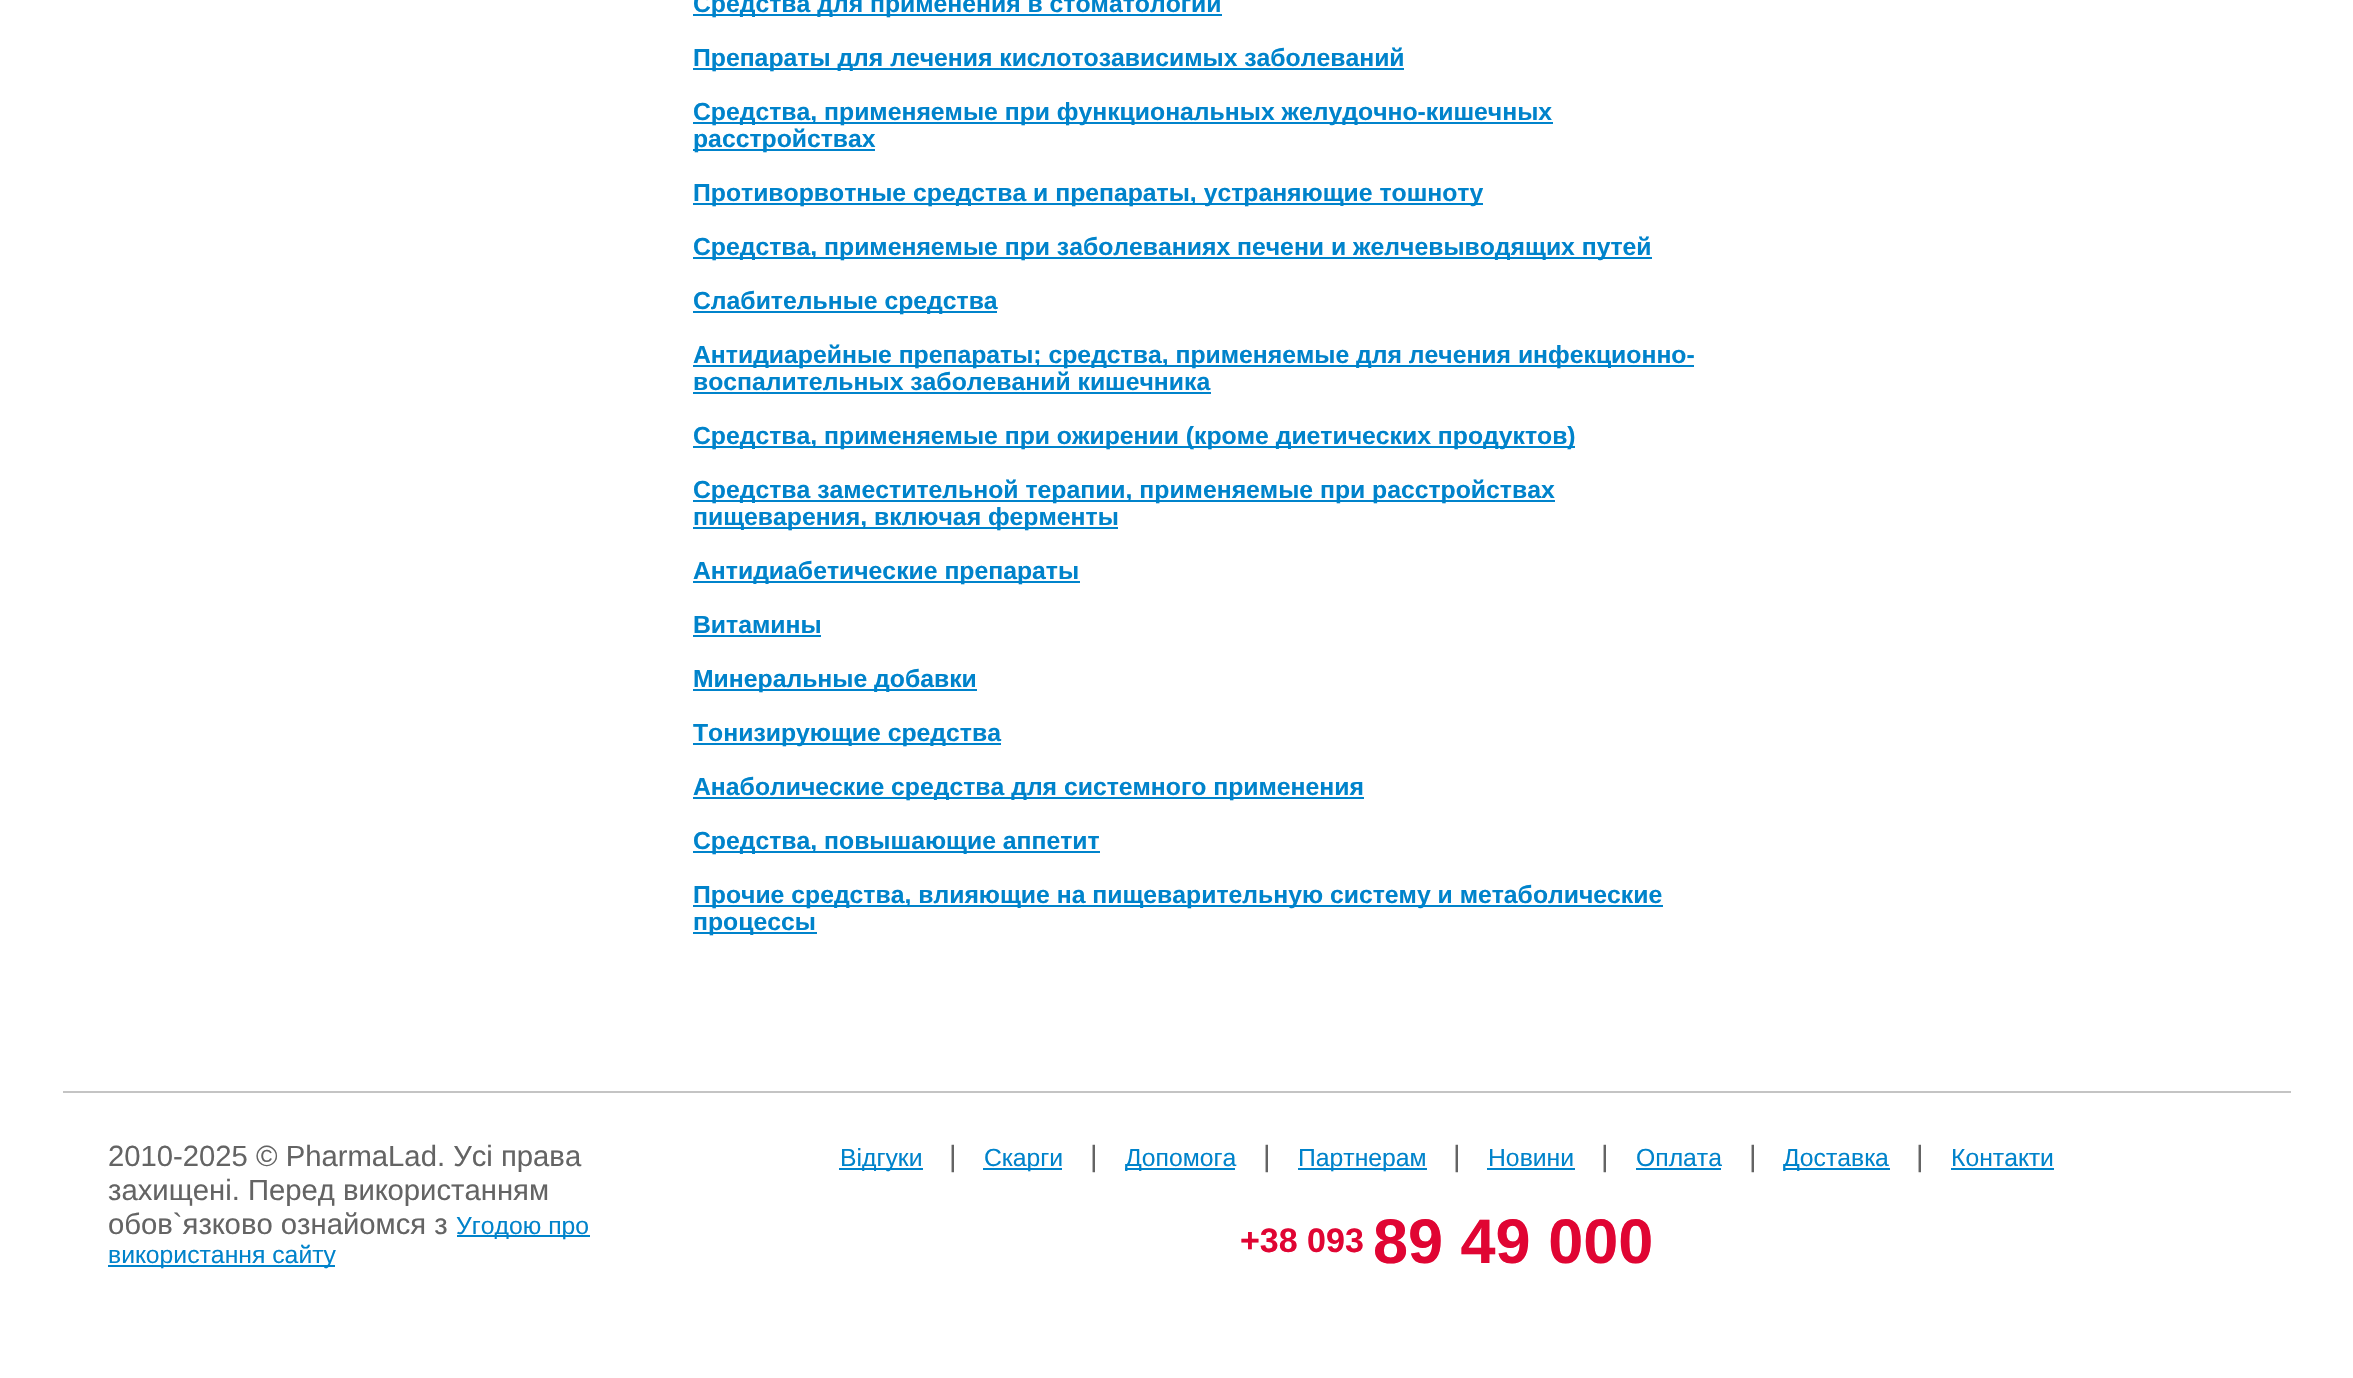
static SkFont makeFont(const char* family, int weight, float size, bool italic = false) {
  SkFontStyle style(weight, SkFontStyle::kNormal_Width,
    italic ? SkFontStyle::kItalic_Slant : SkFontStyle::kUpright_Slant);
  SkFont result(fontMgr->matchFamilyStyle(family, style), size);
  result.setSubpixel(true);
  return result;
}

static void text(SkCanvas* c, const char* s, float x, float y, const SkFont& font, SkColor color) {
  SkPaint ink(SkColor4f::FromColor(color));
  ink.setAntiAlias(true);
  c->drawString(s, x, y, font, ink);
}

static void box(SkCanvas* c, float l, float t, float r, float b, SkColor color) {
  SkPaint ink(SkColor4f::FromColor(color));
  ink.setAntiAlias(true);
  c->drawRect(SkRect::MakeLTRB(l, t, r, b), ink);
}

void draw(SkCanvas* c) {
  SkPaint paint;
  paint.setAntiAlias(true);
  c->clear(0xffffffff);
  box(c, 693, 14, 1222, 16, 0xff0083cb);
  SkFont face1 = makeFont("Liberation Sans", 700, 24.75f);
  text(c, "Средства для применения в стоматологии", 693, 12, face1, 0xff0083cb);
  box(c, 693, 68, 1404, 70, 0xff0083cb);
  text(c, "Препараты для лечения кислотозависимых заболеваний", 693, 66, face1, 0xff0083cb);
  box(c, 693, 122, 1553, 124, 0xff0083cb);
  text(c, "Средства, применяемые при функциональных желудочно-кишечных", 693, 120, face1, 0xff0083cb);
  box(c, 693, 149, 875, 151, 0xff0083cb);
  text(c, "расстройствах", 693, 147, face1, 0xff0083cb);
  box(c, 693, 203, 1483, 205, 0xff0083cb);
  text(c, "Противорвотные средства и препараты, устраняющие тошноту", 693, 201, face1, 0xff0083cb);
  box(c, 693, 257, 1652, 259, 0xff0083cb);
  text(c, "Средства, применяемые при заболеваниях печени и желчевыводящих путей", 693, 255, face1, 0xff0083cb);
  box(c, 693, 311, 997, 313, 0xff0083cb);
  text(c, "Слабительные средства", 693, 309, face1, 0xff0083cb);
  box(c, 693, 365, 1694, 367, 0xff0083cb);
  text(c, "Антидиарейные препараты; средства, применяемые для лечения инфекционно-", 693, 363, face1, 0xff0083cb);
  text(c, "воспалительных заболеваний кишечника", 693, 390, face1, 0xff0083cb);
  box(c, 693, 392, 1211, 394, 0xff0083cb);
  box(c, 693, 446, 1575, 448, 0xff0083cb);
  text(c, "Средства, применяемые при ожирении (кроме диетических продуктов)", 693, 444, face1, 0xff0083cb);
  box(c, 693, 500, 1555, 502, 0xff0083cb);
  text(c, "Средства заместительной терапии, применяемые при расстройствах", 693, 498, face1, 0xff0083cb);
  box(c, 693, 527, 1118, 529, 0xff0083cb);
  text(c, "пищеварения, включая ферменты", 693, 525, face1, 0xff0083cb);
  box(c, 693, 581, 1080, 583, 0xff0083cb);
  text(c, "Антидиабетические препараты", 693, 579, face1, 0xff0083cb);
  text(c, "Витамины", 693, 633, face1, 0xff0083cb);
  box(c, 693, 635, 821, 637, 0xff0083cb);
  box(c, 693, 689, 977, 691, 0xff0083cb);
  text(c, "Минеральные добавки", 693, 687, face1, 0xff0083cb);
  box(c, 693, 743, 1001, 745, 0xff0083cb);
  text(c, "Тонизирующие средства", 693, 741, face1, 0xff0083cb);
  box(c, 693, 797, 1364, 799, 0xff0083cb);
  text(c, "Анаболические средства для системного применения", 693, 795, face1, 0xff0083cb);
  box(c, 693, 851, 1100, 853, 0xff0083cb);
  text(c, "Средства, повышающие аппетит", 693, 849, face1, 0xff0083cb);
  box(c, 693, 905, 1663, 907, 0xff0083cb);
  text(c, "Прочие средства, влияющие на пищеварительную систему и метаболические", 693, 903, face1, 0xff0083cb);
  box(c, 693, 932, 817, 934, 0xff0083cb);
  text(c, "процессы", 693, 930, face1, 0xff0083cb);
  box(c, 63, 1091, 2291, 1093, 0xffc4c4c4);
  SkFont face2 = makeFont("Liberation Sans", 400, 29.25f);
  text(c, "2010-2025 © PharmaLad. Усі права", 108, 1166, face2, 0xff646464);
  text(c, "захищені. Перед використанням", 108, 1200, face2, 0xff646464);
  text(c, "обов`язково ознайомся з", 108, 1234, face2, 0xff646464);
  box(c, 457, 1235, 590, 1237, 0xff0083cb);
  SkFont face3 = makeFont("Liberation Sans", 400, 24.75f);
  text(c, "Угодою про", 456, 1234, face3, 0xff0083cb);
  box(c, 108, 1265, 335, 1267, 0xff0083cb);
  text(c, "використання сайту", 108, 1263, face3, 0xff0083cb);
  box(c, 839, 1168, 923, 1170, 0xff0083cb);
  text(c, "Відгуки", 840, 1166, face3, 0xff0083cb);
  text(c, "|", 949, 1166, face2, 0xff646464);
  box(c, 983, 1168, 1062, 1170, 0xff0083cb);
  text(c, "Скарги", 984, 1166, face3, 0xff0083cb);
  text(c, "|", 1090, 1166, face2, 0xff646464);
  box(c, 1125, 1168, 1235, 1170, 0xff0083cb);
  text(c, "Допомога", 1125, 1166, face3, 0xff0083cb);
  text(c, "|", 1263, 1166, face2, 0xff646464);
  box(c, 1298, 1168, 1427, 1170, 0xff0083cb);
  text(c, "Партнерам", 1298, 1166, face3, 0xff0083cb);
  text(c, "|", 1453, 1166, face2, 0xff646464);
  text(c, "Новини", 1488, 1166, face3, 0xff0083cb);
  box(c, 1487, 1168, 1575, 1170, 0xff0083cb);
  text(c, "|", 1601, 1166, face2, 0xff646464);
  text(c, "Оплата", 1636, 1166, face3, 0xff0083cb);
  box(c, 1636, 1168, 1721, 1170, 0xff0083cb);
  text(c, "|", 1749, 1166, face2, 0xff646464);
  box(c, 1784, 1168, 1890, 1170, 0xff0083cb);
  text(c, "Доставка", 1783, 1166, face3, 0xff0083cb);
  text(c, "|", 1916, 1166, face2, 0xff646464);
  text(c, "Контакти", 1951, 1166, face3, 0xff0083cb);
  box(c, 1951, 1168, 2054, 1170, 0xff0083cb);
  SkFont face4 = makeFont("Liberation Sans", 700, 34);
  text(c, "+38 093", 1240, 1252, face4, 0xffe00533);
  SkFont face5 = makeFont("Liberation Sans", 700, 63);
  text(c, "89 49 000", 1373, 1263, face5, 0xffe00533);
}
